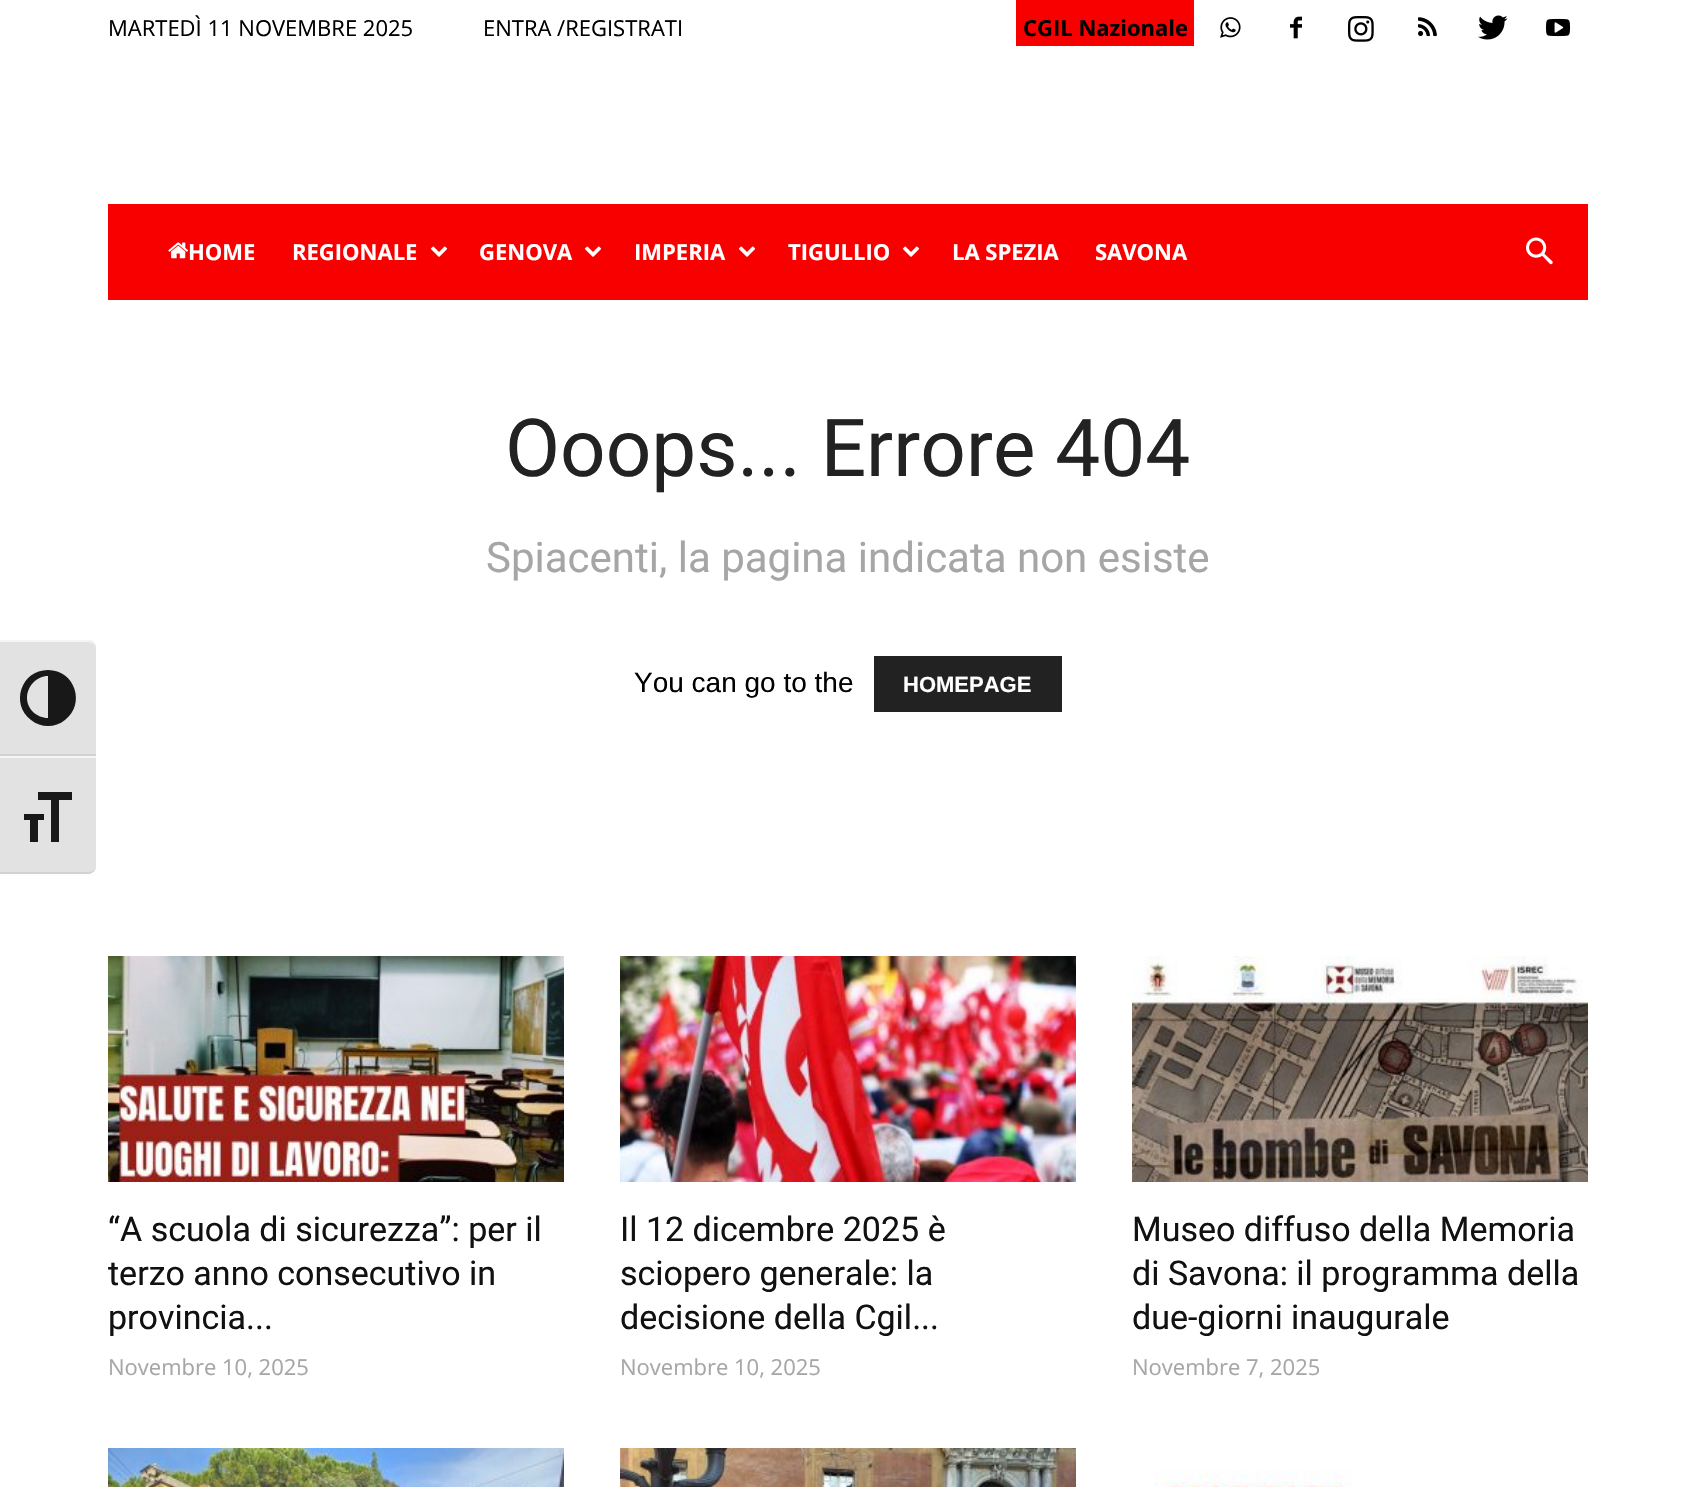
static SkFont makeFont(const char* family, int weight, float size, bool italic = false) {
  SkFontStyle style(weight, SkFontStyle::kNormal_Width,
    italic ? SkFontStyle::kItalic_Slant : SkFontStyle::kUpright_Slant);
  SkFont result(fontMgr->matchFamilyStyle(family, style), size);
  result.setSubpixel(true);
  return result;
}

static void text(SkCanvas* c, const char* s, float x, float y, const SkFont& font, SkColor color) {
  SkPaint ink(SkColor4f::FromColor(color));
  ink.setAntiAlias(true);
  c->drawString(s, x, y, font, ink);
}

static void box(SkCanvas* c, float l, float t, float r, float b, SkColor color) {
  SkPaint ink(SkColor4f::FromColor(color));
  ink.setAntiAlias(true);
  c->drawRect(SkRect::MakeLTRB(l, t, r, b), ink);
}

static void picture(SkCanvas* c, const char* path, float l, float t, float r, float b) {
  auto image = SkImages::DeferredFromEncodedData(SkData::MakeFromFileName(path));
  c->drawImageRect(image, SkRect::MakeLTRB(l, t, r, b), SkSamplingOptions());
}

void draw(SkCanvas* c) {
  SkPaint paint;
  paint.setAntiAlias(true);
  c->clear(0xffffffff);
  paint.setColor(0xffe2e2e2);
  c->drawPath(SkPathBuilder().moveTo(0, 640).lineTo(88, 640).cubicTo(92.5f, 640, 96, 643.5f, 96, 648).lineTo(96, 756).lineTo(0, 756).close().detach(), paint);
  paint.setColor(0xfff5f5f5);
  c->drawPath(SkPathBuilder().moveTo(0, 640).lineTo(0, 642).lineTo(88, 642).cubicTo(92, 642, 96, 645, 96, 648).cubicTo(96, 644, 92, 640, 88, 640).close().detach(), paint);
  box(c, 0, 754, 96, 756, 0xffd2d2d2);
  paint.setColor(0xff181818);
  c->drawPath(SkPathBuilder().moveTo(48, 670).cubicTo(21, 670, 10, 704, 31, 720).cubicTo(36, 724, 42, 726, 48, 726).cubicTo(54, 726, 60, 724, 65, 720).cubicTo(86, 704, 75, 670, 48, 670).close().moveTo(27, 698).cubicTo(27, 686, 37, 676, 48, 676).lineTo(48, 718).cubicTo(37, 718, 27, 709, 27, 698).close().detach(), paint);
  paint.setColor(0xffe2e2e2);
  c->drawPath(SkPathBuilder().moveTo(0, 756).lineTo(96, 756).lineTo(96, 866).cubicTo(96, 870.5f, 92.5f, 874, 88, 874).lineTo(0, 874).close().detach(), paint);
  box(c, 0, 756, 96, 758, 0xfff5f5f5);
  paint.setColor(0xffd2d2d2);
  c->drawPath(SkPathBuilder().moveTo(0, 872).lineTo(0, 874).lineTo(88, 874).cubicTo(92, 874, 96, 870, 96, 866).cubicTo(96, 869, 92, 872, 88, 872).close().detach(), paint);
  paint.setColor(0xff181818);
  c->drawPath(SkPathBuilder().moveTo(24, 814).lineTo(44, 814).lineTo(44, 820).lineTo(38, 820).lineTo(38, 842).lineTo(30, 842).lineTo(30, 820).lineTo(24, 820).close().moveTo(72, 800).lineTo(59, 800).lineTo(59, 842).lineTo(51, 842).lineTo(51, 800).lineTo(38, 800).lineTo(38, 792).lineTo(72, 792).close().detach(), paint);
  SkFont face1 = makeFont("Open Sans", 400, 22);
  text(c, "MARTEDÌ 11 NOVEMBRE 2025", 108, 36, face1, 0xff000000);
  text(c, "ENTRA /REGISTRATI", 483, 36, face1, 0xff000000);
  box(c, 1016, 0, 1194, 46, 0xfff90000);
  SkFont face2 = makeFont("Open Sans", 700, 22);
  text(c, "CGIL Nazionale", 1023, 36, face2, 0xff000000);
  picture(c, "img_01.png", 1220, 17, 1241, 38);
  picture(c, "img_02.png", 1290, 16, 1302, 39);
  picture(c, "img_03.png", 1348, 16, 1374, 42);
  picture(c, "img_04.png", 1418, 17, 1437, 37);
  picture(c, "img_05.png", 1478, 15, 1508, 40);
  picture(c, "img_06.png", 1546, 18, 1570, 37);
  box(c, 108, 204, 1588, 300, 0xfff90000);
  picture(c, "img_07.png", 168, 242, 189, 259);
  text(c, "HOME", 188, 260, face2, 0xffffffff);
  text(c, "REGIONALE", 292, 260, face2, 0xffffffff);
  picture(c, "img_08.png", 430, 246, 448, 257);
  text(c, "GENOVA", 479, 260, face2, 0xffffffff);
  picture(c, "img_08.png", 584, 246, 602, 257);
  text(c, "IMPERIA", 634, 260, face2, 0xffffffff);
  picture(c, "img_08.png", 738, 246, 756, 257);
  text(c, "TIGULLIO", 788, 260, face2, 0xffffffff);
  picture(c, "img_08.png", 902, 246, 920, 257);
  text(c, "LA SPEZIA", 952, 260, face2, 0xffffffff);
  text(c, "SAVONA", 1095, 260, face2, 0xffffffff);
  picture(c, "img_09.png", 1526, 237, 1553, 265);
  SkFont face3 = makeFont("Roboto", 400, 80);
  text(c, "Ooops... Errore 404", 505, 476, face3, 0xff222222);
  SkFont face4 = makeFont("Roboto", 400, 42);
  text(c, "Spiacenti, la pagina indicata non esiste", 486, 572, face4, 0xffa6a6a6);
  SkFont face5 = makeFont("Liberation Sans", 400, 28);
  text(c, "You can go to the", 634, 692, face5, 0xff000000);
  box(c, 874, 656, 1062, 712, 0xff222222);
  SkFont face6 = makeFont("Liberation Sans", 700, 22);
  text(c, "HOMEPAGE", 903, 692, face6, 0xffffffff);
  picture(c, "img_10.png", 108, 956, 564, 1182);
  SkFont face7 = makeFont("Roboto", 400, 34);
  text(c, "“A scuola di sicurezza”: per il", 108, 1241, face7, 0xff111111);
  text(c, "terzo anno consecutivo in", 108, 1285, face7, 0xff111111);
  text(c, "provincia...", 108, 1329, face7, 0xff111111);
  text(c, "Novembre 10, 2025", 108, 1375, face1, 0xffa6a6a6);
  picture(c, "img_11.png", 620, 956, 1076, 1182);
  text(c, "Il 12 dicembre 2025 è", 620, 1241, face7, 0xff111111);
  text(c, "sciopero generale: la", 620, 1285, face7, 0xff111111);
  text(c, "decisione della Cgil...", 620, 1329, face7, 0xff111111);
  text(c, "Novembre 10, 2025", 620, 1375, face1, 0xffa6a6a6);
  picture(c, "img_12.png", 1132, 956, 1588, 1182);
  text(c, "Museo diffuso della Memoria", 1132, 1241, face7, 0xff111111);
  text(c, "di Savona: il programma della", 1132, 1285, face7, 0xff111111);
  text(c, "due-giorni inaugurale", 1132, 1329, face7, 0xff111111);
  text(c, "Novembre 7, 2025", 1132, 1375, face1, 0xffa6a6a6);
  picture(c, "img_13.png", 108, 1448, 564, 1487);
  picture(c, "img_14.png", 620, 1448, 1076, 1487);
  picture(c, "img_15.png", 1154, 1470, 1352, 1487);
}
